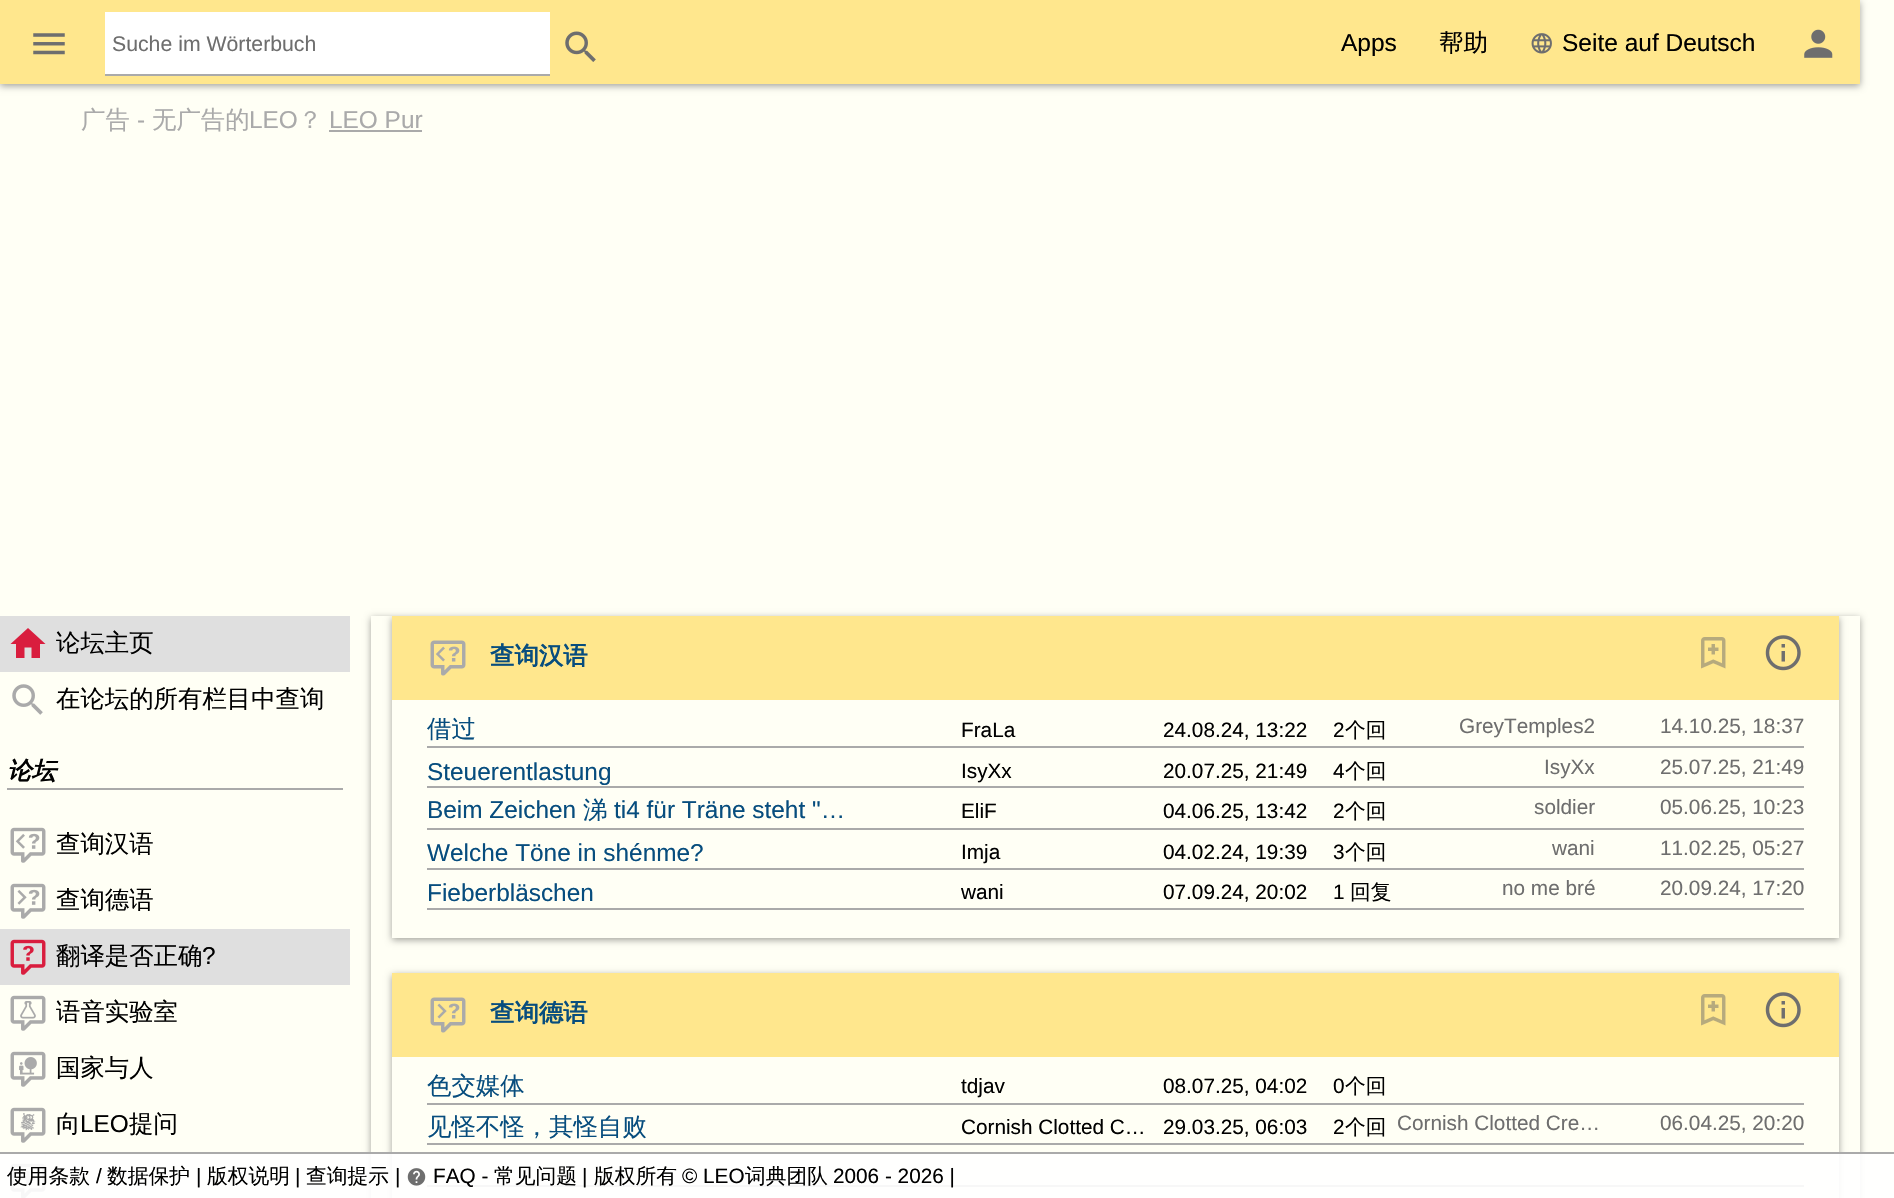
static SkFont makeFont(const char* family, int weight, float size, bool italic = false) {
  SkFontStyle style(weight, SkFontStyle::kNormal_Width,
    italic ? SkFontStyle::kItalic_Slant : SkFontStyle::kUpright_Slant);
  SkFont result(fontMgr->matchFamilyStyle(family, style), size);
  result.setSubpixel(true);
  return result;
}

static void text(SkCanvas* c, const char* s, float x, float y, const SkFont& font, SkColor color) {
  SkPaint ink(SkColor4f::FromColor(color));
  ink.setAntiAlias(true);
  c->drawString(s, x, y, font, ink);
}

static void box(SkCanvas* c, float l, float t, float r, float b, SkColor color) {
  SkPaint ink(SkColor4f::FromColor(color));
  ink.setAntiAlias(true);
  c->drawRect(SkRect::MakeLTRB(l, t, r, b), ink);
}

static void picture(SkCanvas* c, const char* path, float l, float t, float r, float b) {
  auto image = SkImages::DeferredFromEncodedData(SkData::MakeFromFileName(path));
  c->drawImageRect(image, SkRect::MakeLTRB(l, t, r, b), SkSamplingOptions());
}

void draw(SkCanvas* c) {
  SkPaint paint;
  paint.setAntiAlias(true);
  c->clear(0xfffffff5);
  paint.setColor(0x5e000000);
  paint.setMaskFilter(SkMaskFilter::MakeBlur(kNormal_SkBlurStyle, 3.5f));
  c->drawRect(SkRect::MakeLTRB(0, 2, 1860, 86), paint);
  paint.setMaskFilter(nullptr);
  box(c, 0, 0, 1860, 84, 0xffffe78d);
  picture(c, "img_01.png", 33, 33, 65, 55);
  box(c, 105, 12, 550, 74, 0xffffffff);
  box(c, 105, 74, 550, 76, 0xffaaaaaa);
  SkFont face1 = makeFont("Liberation Sans", 400, 21.25f);
  text(c, "Suche im Wörterbuch", 112, 51, face1, 0xff6e6e6e);
  picture(c, "img_02.png", 565, 31, 596, 62);
  SkFont face2 = makeFont("Liberation Sans", 400, 24.5f);
  text(c, "Apps", 1341, 51, face2, 0xff000000);
  SkFont face3 = makeFont("WenQuanYi Zen Hei", 500, 24.5f);
  text(c, "帮助", 1439, 51, face3, 0xff000000);
  picture(c, "img_03.png", 1531, 33, 1552, 54);
  text(c, "Seite auf Deutsch", 1562, 51, face2, 0xff000000);
  picture(c, "img_04.png", 1804, 29, 1833, 58);
  SkFont face4 = makeFont("WenQuanYi Zen Hei", 500, 24.4f);
  text(c, "广告", 81, 128, face4, 0xffaaaaaa);
  SkFont face5 = makeFont("Liberation Sans", 400, 24.4f);
  text(c, "-", 137, 128, face5, 0xffaaaaaa);
  text(c, "无广告的", 152, 128, face4, 0xffaaaaaa);
  text(c, "LEO", 249, 128, face5, 0xffaaaaaa);
  text(c, "？", 298, 128, face4, 0xffaaaaaa);
  text(c, "LEO Pur", 329, 128, face5, 0xffaaaaaa);
  box(c, 329, 130, 422, 132, 0xffaaaaaa);
  box(c, 0, 616, 350, 672, 0xffdfdfdf);
  paint.setColor(0xffd91d3e);
  c->drawPath(SkPathBuilder().moveTo(24.5f, 658).lineTo(16, 658).lineTo(16, 644).lineTo(10.5f, 644).lineTo(28, 628).lineTo(45.5f, 644).lineTo(40, 644).lineTo(40, 658).lineTo(31.5f, 658).lineTo(31.5f, 647.5f).lineTo(24.5f, 647.5f).close().detach(), paint);
  text(c, "论坛主页", 56, 651, face4, 0xff000000);
  picture(c, "img_05.png", 12, 684, 43, 715);
  text(c, "在论坛的所有栏目中查询", 56, 707, face4, 0xff000000);
  box(c, 7, 788, 343, 790, 0xffaaaaaa);
  SkFont face6 = makeFont("WenQuanYi Zen Hei", 700, 24.4f, true);
  text(c, "论坛", 7, 779, face6, 0xff000000);
  picture(c, "img_06.png", 10, 827, 46, 863);
  text(c, "查询汉语", 56, 852, face4, 0xff000000);
  picture(c, "img_07.png", 10, 883, 46, 919);
  text(c, "查询德语", 56, 908, face4, 0xff000000);
  box(c, 0, 929, 350, 985, 0xffdfdfdf);
  picture(c, "img_08.png", 10, 939, 46, 975);
  text(c, "翻译是否正确", 56, 964, face4, 0xff000000);
  text(c, "?", 202, 964, face5, 0xff000000);
  picture(c, "img_09.png", 10, 995, 46, 1031);
  text(c, "语音实验室", 56, 1020, face4, 0xff000000);
  picture(c, "img_10.png", 10, 1051, 46, 1087);
  text(c, "国家与人", 56, 1076, face4, 0xff000000);
  picture(c, "img_11.png", 10, 1107, 46, 1143);
  text(c, "向", 56, 1132, face4, 0xff000000);
  text(c, "LEO", 80, 1132, face5, 0xff000000);
  text(c, "提问", 129, 1132, face4, 0xff000000);
  picture(c, "img_12.png", 10, 1163, 46, 1198);
  c->save();
  c->clipPath(SkPathBuilder(SkPathFillType::kEvenOdd).moveTo(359, 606).lineTo(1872, 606).lineTo(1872, 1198).lineTo(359, 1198).close().moveTo(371, 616).lineTo(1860, 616).lineTo(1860, 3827).lineTo(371, 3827).close().detach(), true);
  paint.setColor(0x5e000000);
  paint.setMaskFilter(SkMaskFilter::MakeBlur(kNormal_SkBlurStyle, 3.5f));
  c->drawRect(SkRect::MakeLTRB(371, 618, 1860, 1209), paint);
  paint.setMaskFilter(nullptr);
  c->restore();
  c->save();
  c->clipRect(SkRect::MakeLTRB(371, 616, 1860, 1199));
  c->clipPath(SkPathBuilder(SkPathFillType::kEvenOdd).moveTo(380, 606).lineTo(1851, 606).lineTo(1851, 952).lineTo(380, 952).close().moveTo(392, 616).lineTo(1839, 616).lineTo(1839, 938).lineTo(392, 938).close().detach(), true);
  paint.setMaskFilter(SkMaskFilter::MakeBlur(kNormal_SkBlurStyle, 3.5f));
  c->drawRect(SkRect::MakeLTRB(392, 618, 1839, 940), paint);
  paint.setMaskFilter(nullptr);
  c->restore();
  box(c, 392, 616, 1839, 700, 0xffffe78d);
  picture(c, "img_13.png", 430, 640, 466, 676);
  SkFont face7 = makeFont("WenQuanYi Zen Hei", 700, 24.4f);
  text(c, "查询汉语", 490, 664, face7, 0xff074d7e);
  picture(c, "img_14.png", 1701, 637, 1726, 669);
  picture(c, "img_15.png", 1765, 635, 1801, 671);
  box(c, 427, 746, 1804, 748, 0xffaaaaaa);
  text(c, "借过", 427, 737, face4, 0xff074d7e);
  SkFont face8 = makeFont("Liberation Sans", 400, 20.75f);
  text(c, "FraLa", 961, 737, face8, 0xff000000);
  text(c, "24.08.24, 13:22", 1163, 737, face8, 0xff000000);
  text(c, "2", 1333, 737, face8, 0xff000000);
  SkFont face9 = makeFont("WenQuanYi Zen Hei", 500, 20.75f);
  text(c, "个回", 1345, 737, face9, 0xff000000);
  text(c, "GreyTemples2", 1459, 733, face8, 0xff6e6e6e);
  text(c, "14.10.25, 18:37", 1660, 733, face8, 0xff6e6e6e);
  box(c, 427, 786, 1804, 788, 0xffaaaaaa);
  text(c, "Steuerentlastung", 427, 780, face5, 0xff074d7e);
  text(c, "IsyXx", 961, 778, face8, 0xff000000);
  text(c, "20.07.25, 21:49", 1163, 778, face8, 0xff000000);
  text(c, "4", 1333, 778, face8, 0xff000000);
  text(c, "个回", 1345, 778, face9, 0xff000000);
  text(c, "IsyXx", 1544, 774, face8, 0xff6e6e6e);
  text(c, "25.07.25, 21:49", 1660, 774, face8, 0xff6e6e6e);
  box(c, 427, 828, 1804, 830, 0xffaaaaaa);
  text(c, "Beim Zeichen", 427, 818, face5, 0xff074d7e);
  text(c, "涕", 583, 818, face4, 0xff074d7e);
  text(c, "ti4 für Träne steht \"…", 614, 818, face5, 0xff074d7e);
  text(c, "EliF", 961, 818, face8, 0xff000000);
  text(c, "04.06.25, 13:42", 1163, 818, face8, 0xff000000);
  text(c, "2", 1333, 818, face8, 0xff000000);
  text(c, "个回", 1345, 818, face9, 0xff000000);
  text(c, "soldier", 1534, 814, face8, 0xff6e6e6e);
  text(c, "05.06.25, 10:23", 1660, 814, face8, 0xff6e6e6e);
  box(c, 427, 868, 1804, 870, 0xffaaaaaa);
  text(c, "Welche Töne in shénme?", 427, 861, face5, 0xff074d7e);
  text(c, "Imja", 961, 859, face8, 0xff000000);
  text(c, "04.02.24, 19:39", 1163, 859, face8, 0xff000000);
  text(c, "3", 1333, 859, face8, 0xff000000);
  text(c, "个回", 1345, 859, face9, 0xff000000);
  text(c, "wani", 1552, 855, face8, 0xff6e6e6e);
  text(c, "11.02.25, 05:27", 1660, 855, face8, 0xff6e6e6e);
  box(c, 427, 908, 1804, 910, 0xffaaaaaa);
  text(c, "Fieberbläschen", 427, 901, face5, 0xff074d7e);
  text(c, "wani", 961, 899, face8, 0xff000000);
  text(c, "07.09.24, 20:02", 1163, 899, face8, 0xff000000);
  text(c, "1", 1333, 899, face8, 0xff000000);
  text(c, "回复", 1350, 899, face9, 0xff000000);
  text(c, "no me bré", 1502, 895, face8, 0xff6e6e6e);
  text(c, "20.09.24, 17:20", 1660, 895, face8, 0xff6e6e6e);
  c->save();
  c->clipPath(SkPathBuilder(SkPathFillType::kEvenOdd).moveTo(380, 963).lineTo(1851, 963).lineTo(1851, 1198).lineTo(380, 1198).close().moveTo(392, 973).lineTo(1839, 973).lineTo(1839, 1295).lineTo(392, 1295).close().detach(), true);
  paint.setMaskFilter(SkMaskFilter::MakeBlur(kNormal_SkBlurStyle, 3.5f));
  c->drawRect(SkRect::MakeLTRB(392, 975, 1839, 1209), paint);
  paint.setMaskFilter(nullptr);
  c->restore();
  box(c, 392, 973, 1839, 1057, 0xffffe78d);
  picture(c, "img_16.png", 430, 997, 466, 1033);
  text(c, "查询德语", 490, 1021, face7, 0xff074d7e);
  picture(c, "img_14.png", 1701, 994, 1726, 1026);
  picture(c, "img_15.png", 1765, 992, 1801, 1028);
  box(c, 427, 1103, 1804, 1105, 0xffaaaaaa);
  text(c, "色交媒体", 427, 1094, face4, 0xff074d7e);
  text(c, "tdjav", 961, 1093, face8, 0xff000000);
  text(c, "08.07.25, 04:02", 1163, 1093, face8, 0xff000000);
  text(c, "0", 1333, 1093, face8, 0xff000000);
  text(c, "个回", 1345, 1093, face9, 0xff000000);
  box(c, 427, 1143, 1804, 1145, 0xffaaaaaa);
  text(c, "见怪不怪，其怪自败", 427, 1135, face4, 0xff074d7e);
  text(c, "Cornish Clotted C…", 961, 1134, face8, 0xff000000);
  text(c, "29.03.25, 06:03", 1163, 1134, face8, 0xff000000);
  text(c, "2", 1333, 1134, face8, 0xff000000);
  text(c, "个回", 1345, 1134, face9, 0xff000000);
  text(c, "Cornish Clotted Cre…", 1397, 1130, face8, 0xff6e6e6e);
  text(c, "06.04.25, 20:20", 1660, 1130, face8, 0xff6e6e6e);
  box(c, 427, 1185, 1804, 1187, 0xffaaaaaa);
  box(c, 0, 1154, 1894, 1198, 0xe6ffffff);
  box(c, 0, 1152, 1894, 1154, 0xffaaaaaa);
  text(c, "使用条款", 7, 1183, face9, 0xff000000);
  text(c, "/", 96, 1183, face8, 0xff000000);
  text(c, "数据保护", 107, 1183, face9, 0xff000000);
  text(c, "|", 196, 1183, face8, 0xff000000);
  text(c, "版权说明", 207, 1183, face9, 0xff000000);
  text(c, "|", 295, 1183, face8, 0xff000000);
  text(c, "查询提示", 306, 1183, face9, 0xff000000);
  text(c, "|", 395, 1183, face8, 0xff000000);
  picture(c, "img_17.png", 407, 1168, 426, 1186);
  text(c, "FAQ -", 433, 1183, face8, 0xff000000);
  text(c, "常见问题", 494, 1183, face9, 0xff000000);
  text(c, "|", 582, 1183, face8, 0xff000000);
  text(c, "版权所有", 594, 1183, face9, 0xff000000);
  text(c, "© LEO", 682, 1183, face8, 0xff000000);
  text(c, "词典团队", 745, 1183, face9, 0xff000000);
  text(c, "2006 - 2026 |", 833, 1183, face8, 0xff000000);
}
